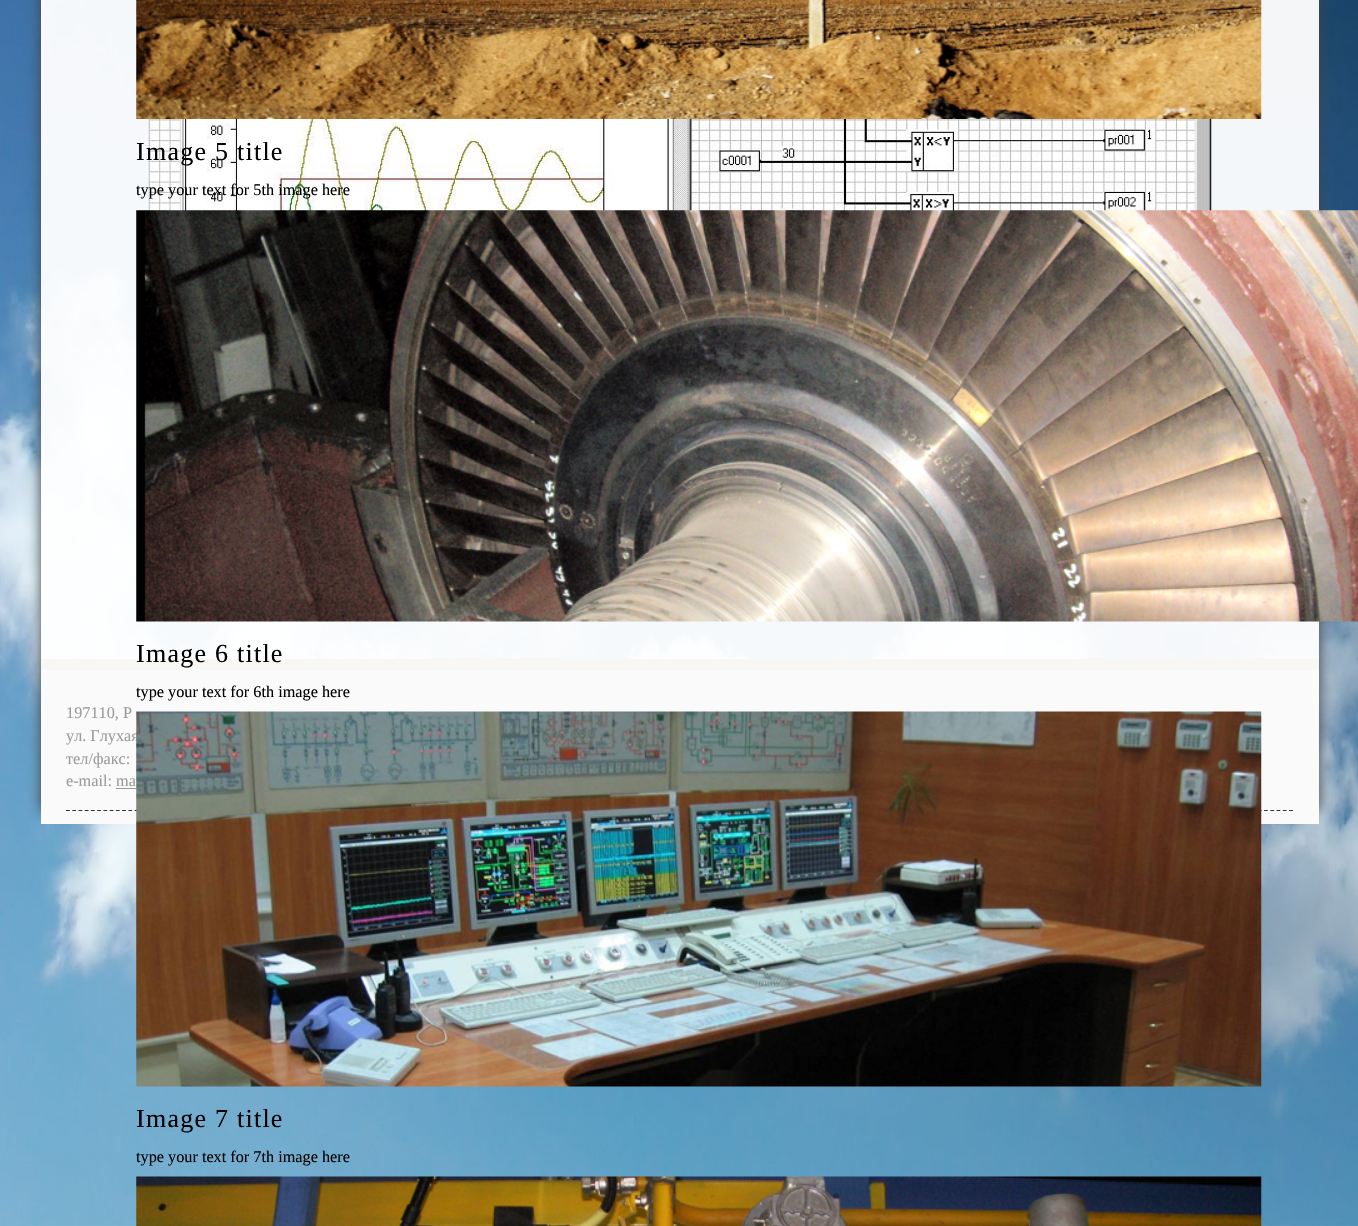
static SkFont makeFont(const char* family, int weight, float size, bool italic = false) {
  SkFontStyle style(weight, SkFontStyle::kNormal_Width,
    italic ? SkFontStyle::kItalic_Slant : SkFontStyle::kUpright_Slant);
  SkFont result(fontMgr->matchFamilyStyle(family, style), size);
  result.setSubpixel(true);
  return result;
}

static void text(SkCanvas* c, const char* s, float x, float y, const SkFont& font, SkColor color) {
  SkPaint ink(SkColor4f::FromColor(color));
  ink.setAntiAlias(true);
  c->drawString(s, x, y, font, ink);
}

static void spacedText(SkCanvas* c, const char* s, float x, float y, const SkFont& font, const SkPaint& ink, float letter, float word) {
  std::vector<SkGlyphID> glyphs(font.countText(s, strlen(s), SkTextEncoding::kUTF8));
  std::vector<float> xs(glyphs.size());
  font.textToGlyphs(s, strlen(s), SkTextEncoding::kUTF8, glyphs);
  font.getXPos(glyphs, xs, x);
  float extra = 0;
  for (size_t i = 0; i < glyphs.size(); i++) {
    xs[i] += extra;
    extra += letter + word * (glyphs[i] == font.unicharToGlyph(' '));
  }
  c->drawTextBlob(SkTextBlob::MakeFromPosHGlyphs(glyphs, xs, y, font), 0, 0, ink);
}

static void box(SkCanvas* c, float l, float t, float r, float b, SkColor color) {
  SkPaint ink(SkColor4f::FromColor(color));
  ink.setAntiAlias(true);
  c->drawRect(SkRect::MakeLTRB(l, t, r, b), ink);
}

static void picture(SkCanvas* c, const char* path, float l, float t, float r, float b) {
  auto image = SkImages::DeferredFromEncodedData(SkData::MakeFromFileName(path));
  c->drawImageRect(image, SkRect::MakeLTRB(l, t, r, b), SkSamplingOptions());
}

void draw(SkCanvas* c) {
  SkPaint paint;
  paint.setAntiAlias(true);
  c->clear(0xffffffff);
  picture(c, "img_01.png", 0, 0, 1358, 1226);
  c->save();
  c->clipPath(SkPathBuilder(SkPathFillType::kEvenOdd).moveTo(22, 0).lineTo(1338, 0).lineTo(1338, 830).lineTo(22, 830).close().moveTo(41, -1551).lineTo(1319, -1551).lineTo(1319, 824).lineTo(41, 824).close().detach(), true);
  paint.setColor(0xff444444);
  paint.setMaskFilter(SkMaskFilter::MakeBlur(kNormal_SkBlurStyle, 6));
  c->drawRect(SkRect::MakeLTRB(41, -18, 1319, 811), paint);
  paint.setMaskFilter(nullptr);
  c->restore();
  box(c, 41, 0, 1319, 659, 0xf2ffffff);
  picture(c, "img_02.png", 148, 119, 1212, 211);
  box(c, 41, 669, 1319, 824, 0xfffafafa);
  box(c, 41, 659, 1319, 669, 0xfff8f7f3);
  paint.setStyle(SkPaint::kStroke_Style);
  paint.setStrokeWidth(1.2f);
  paint.setColor(0xff333333);
  paint.setPathEffect(SkDashPathEffect::Make({{3.75f, 2.49f}}, 0));
  c->drawPath(SkPathBuilder().moveTo(66, 810.5f).lineTo(1294, 810.5f).detach(), paint);
  paint.setPathEffect(nullptr);
  SkFont face1 = makeFont("Liberation Serif", 400, 16.25f);
  text(c, "197110, Р", 66, 718, face1, 0xff9c9b99);
  text(c, "ул. Глухая", 66, 741, face1, 0xff9c9b99);
  text(c, "тел/факс:", 66, 764, face1, 0xff9c9b99);
  text(c, "e-mail: ma", 66, 786, face1, 0xff9c9b99);
  box(c, 116, 788, 137, 789, 0xff9c9b99);
  picture(c, "img_03.png", 136, 0, 1262, 119);
  SkFont face2 = makeFont("Liberation Serif", 400, 26);
  paint.setStyle(SkPaint::kFill_Style);
  paint.setColor(0xff000000);
  spacedText(c, "Image 5 title", 136, 160, face2, paint, 1.25f, 0);
  text(c, "type your text for 5th image here", 136, 195, face1, 0xff000000);
  picture(c, "img_04.png", 136, 210, 1358, 622);
  spacedText(c, "Image 6 title", 136, 662, face2, paint, 1.25f, 0);
  text(c, "type your text for 6th image here", 136, 697, face1, 0xff000000);
  picture(c, "img_05.png", 136, 711, 1262, 1087);
  spacedText(c, "Image 7 title", 136, 1127, face2, paint, 1.25f, 0);
  text(c, "type your text for 7th image here", 136, 1162, face1, 0xff000000);
  picture(c, "img_06.png", 136, 1176, 1262, 1226);
}
